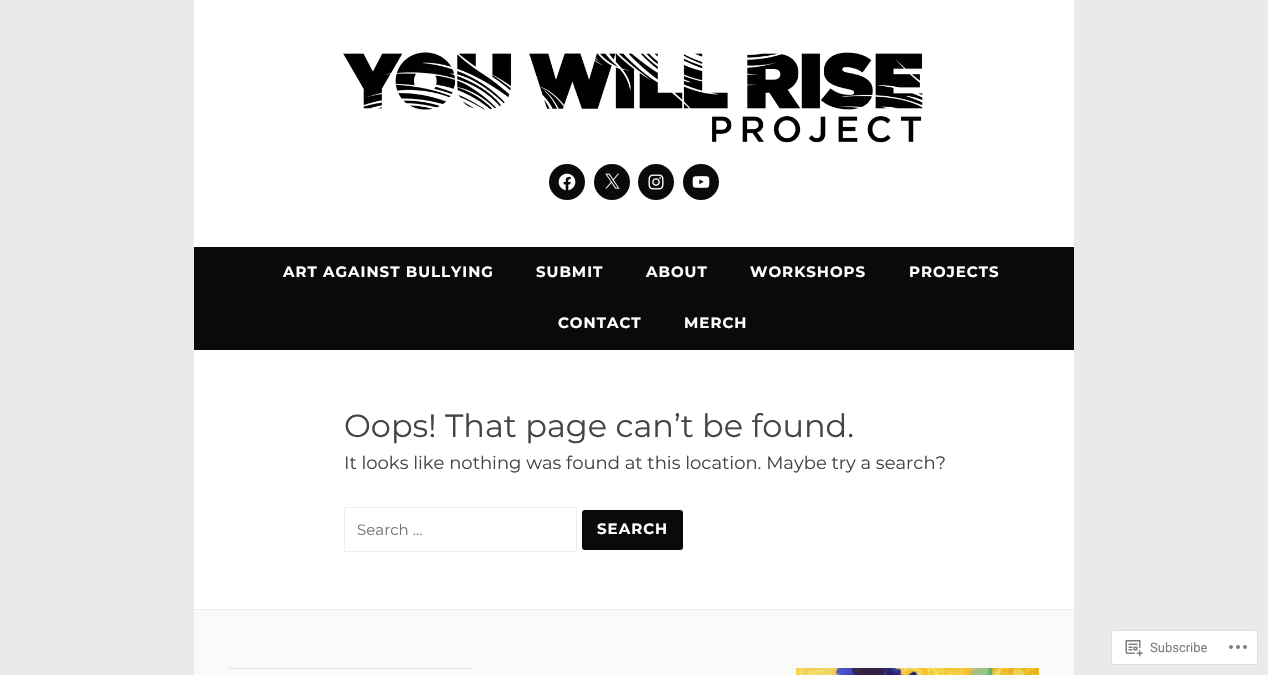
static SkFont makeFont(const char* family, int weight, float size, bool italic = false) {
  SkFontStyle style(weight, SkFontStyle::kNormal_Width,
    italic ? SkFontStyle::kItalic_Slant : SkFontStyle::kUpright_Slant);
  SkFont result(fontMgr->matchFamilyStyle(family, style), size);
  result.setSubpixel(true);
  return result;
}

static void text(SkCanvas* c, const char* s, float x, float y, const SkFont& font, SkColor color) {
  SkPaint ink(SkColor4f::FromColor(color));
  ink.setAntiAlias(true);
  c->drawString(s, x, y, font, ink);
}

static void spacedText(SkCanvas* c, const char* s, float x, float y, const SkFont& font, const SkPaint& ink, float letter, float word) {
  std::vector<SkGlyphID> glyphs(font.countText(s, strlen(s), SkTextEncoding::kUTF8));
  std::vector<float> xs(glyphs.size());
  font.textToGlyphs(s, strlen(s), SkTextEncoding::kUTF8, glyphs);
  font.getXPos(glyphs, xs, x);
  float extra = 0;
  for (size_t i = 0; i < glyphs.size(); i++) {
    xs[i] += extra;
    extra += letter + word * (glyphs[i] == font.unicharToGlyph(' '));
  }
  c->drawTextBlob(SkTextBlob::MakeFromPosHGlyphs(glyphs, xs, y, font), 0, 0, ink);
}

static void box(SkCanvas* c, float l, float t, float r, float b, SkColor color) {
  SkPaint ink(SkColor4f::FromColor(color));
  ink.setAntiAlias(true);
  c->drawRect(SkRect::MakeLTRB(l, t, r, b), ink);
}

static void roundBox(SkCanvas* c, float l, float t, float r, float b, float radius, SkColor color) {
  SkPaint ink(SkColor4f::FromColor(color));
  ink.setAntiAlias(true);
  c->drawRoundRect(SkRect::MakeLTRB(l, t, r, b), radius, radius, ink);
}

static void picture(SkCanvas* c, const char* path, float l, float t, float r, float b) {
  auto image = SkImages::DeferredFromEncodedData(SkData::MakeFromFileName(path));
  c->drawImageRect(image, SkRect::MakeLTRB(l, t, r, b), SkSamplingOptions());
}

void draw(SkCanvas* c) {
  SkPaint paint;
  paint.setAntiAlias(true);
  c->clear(0xffeaeaea);
  box(c, 194, 0, 1074, 247, 0xffffffff);
  picture(c, "img_01.png", 343, 52, 923, 143);
  paint.setColor(0xff0a0a0a);
  c->drawCircle(567, 182, 18, paint);
  picture(c, "img_02.png", 558, 173, 576, 191);
  c->drawCircle(612, 182, 18, paint);
  picture(c, "img_03.png", 605, 173, 620, 189);
  c->drawCircle(656, 182, 18, paint);
  picture(c, "img_04.png", 648, 174, 664, 190);
  c->drawCircle(701, 182, 18, paint);
  picture(c, "img_05.png", 692, 176, 710, 188);
  box(c, 194, 247, 1074, 350, 0xff0a0a0a);
  SkFont face1 = makeFont("Montserrat", 700, 15);
  paint.setColor(0xffffffff);
  spacedText(c, "ART AGAINST BULLYING", 283, 277, face1, paint, 1, 0);
  spacedText(c, "SUBMIT", 536, 277, face1, paint, 1, 0);
  spacedText(c, "ABOUT", 646, 277, face1, paint, 1, 0);
  spacedText(c, "WORKSHOPS", 750, 277, face1, paint, 1, 0);
  spacedText(c, "PROJECTS", 909, 277, face1, paint, 1, 0);
  spacedText(c, "CONTACT", 558, 328, face1, paint, 1, 0);
  spacedText(c, "MERCH", 684, 328, face1, paint, 1, 0);
  box(c, 194, 350, 1074, 609, 0xffffffff);
  SkFont face2 = makeFont("Montserrat", 400, 32);
  text(c, "Oops! That page can’t be found.", 344, 437, face2, 0xff444444);
  SkFont face3 = makeFont("Montserrat", 400, 18);
  text(c, "It looks like nothing was found at this location. Maybe try a search?", 344, 469, face3, 0xff444444);
  paint.setStyle(SkPaint::kStroke_Style);
  paint.setStrokeWidth(1);
  paint.setColor(0xffeeeeee);
  c->drawRoundRect(SkRect::MakeLTRB(344.5f, 507.5f, 576.5f, 551.5f), 1.5f, 1.5f, paint);
  SkFont face4 = makeFont("Montserrat", 400, 15);
  text(c, "Search …", 357, 535, face4, 0xff757575);
  roundBox(c, 582, 510, 683, 550, 3, 0xff0a0a0a);
  paint.setStyle(SkPaint::kFill_Style);
  paint.setColor(0x1a000000);
  c->drawPath(SkPathBuilder().moveTo(582, 545).lineTo(582, 547).cubicTo(582, 549, 583, 550, 585, 550).lineTo(680, 550).cubicTo(682, 550, 683, 549, 683, 547).lineTo(683, 545).cubicTo(683, 547, 682, 548, 680, 548).lineTo(585, 548).cubicTo(583, 548, 582, 547, 582, 545).close().detach(), paint);
  paint.setColor(0xffffffff);
  spacedText(c, "SEARCH", 597, 534, face1, paint, 1, 0);
  box(c, 194, 610, 1074, 675, 0xfffafafa);
  box(c, 194, 609, 1074, 610, 0xffeeeeee);
  box(c, 229, 668, 472, 669, 0xffe5e5e5);
  picture(c, "img_06.png", 796, 668, 1039, 675);
  c->drawRoundRect(SkRect::MakeLTRB(1111.5f, 630.5f, 1257.5f, 664.5f), 2.5f, 2.5f, paint);
  paint.setStyle(SkPaint::kStroke_Style);
  paint.setColor(0xffdcdcde);
  c->drawRoundRect(SkRect::MakeLTRB(1111.5f, 630.5f, 1257.5f, 664.5f), 2.5f, 2.5f, paint);
  picture(c, "img_07.png", 1125, 640, 1143, 657);
  SkFont face5 = makeFont("Roboto", 400, 13);
  text(c, "Subscribe", 1150, 652, face5, 0xff7a7e84);
  picture(c, "img_08.png", 1229, 645, 1247, 649);
}
